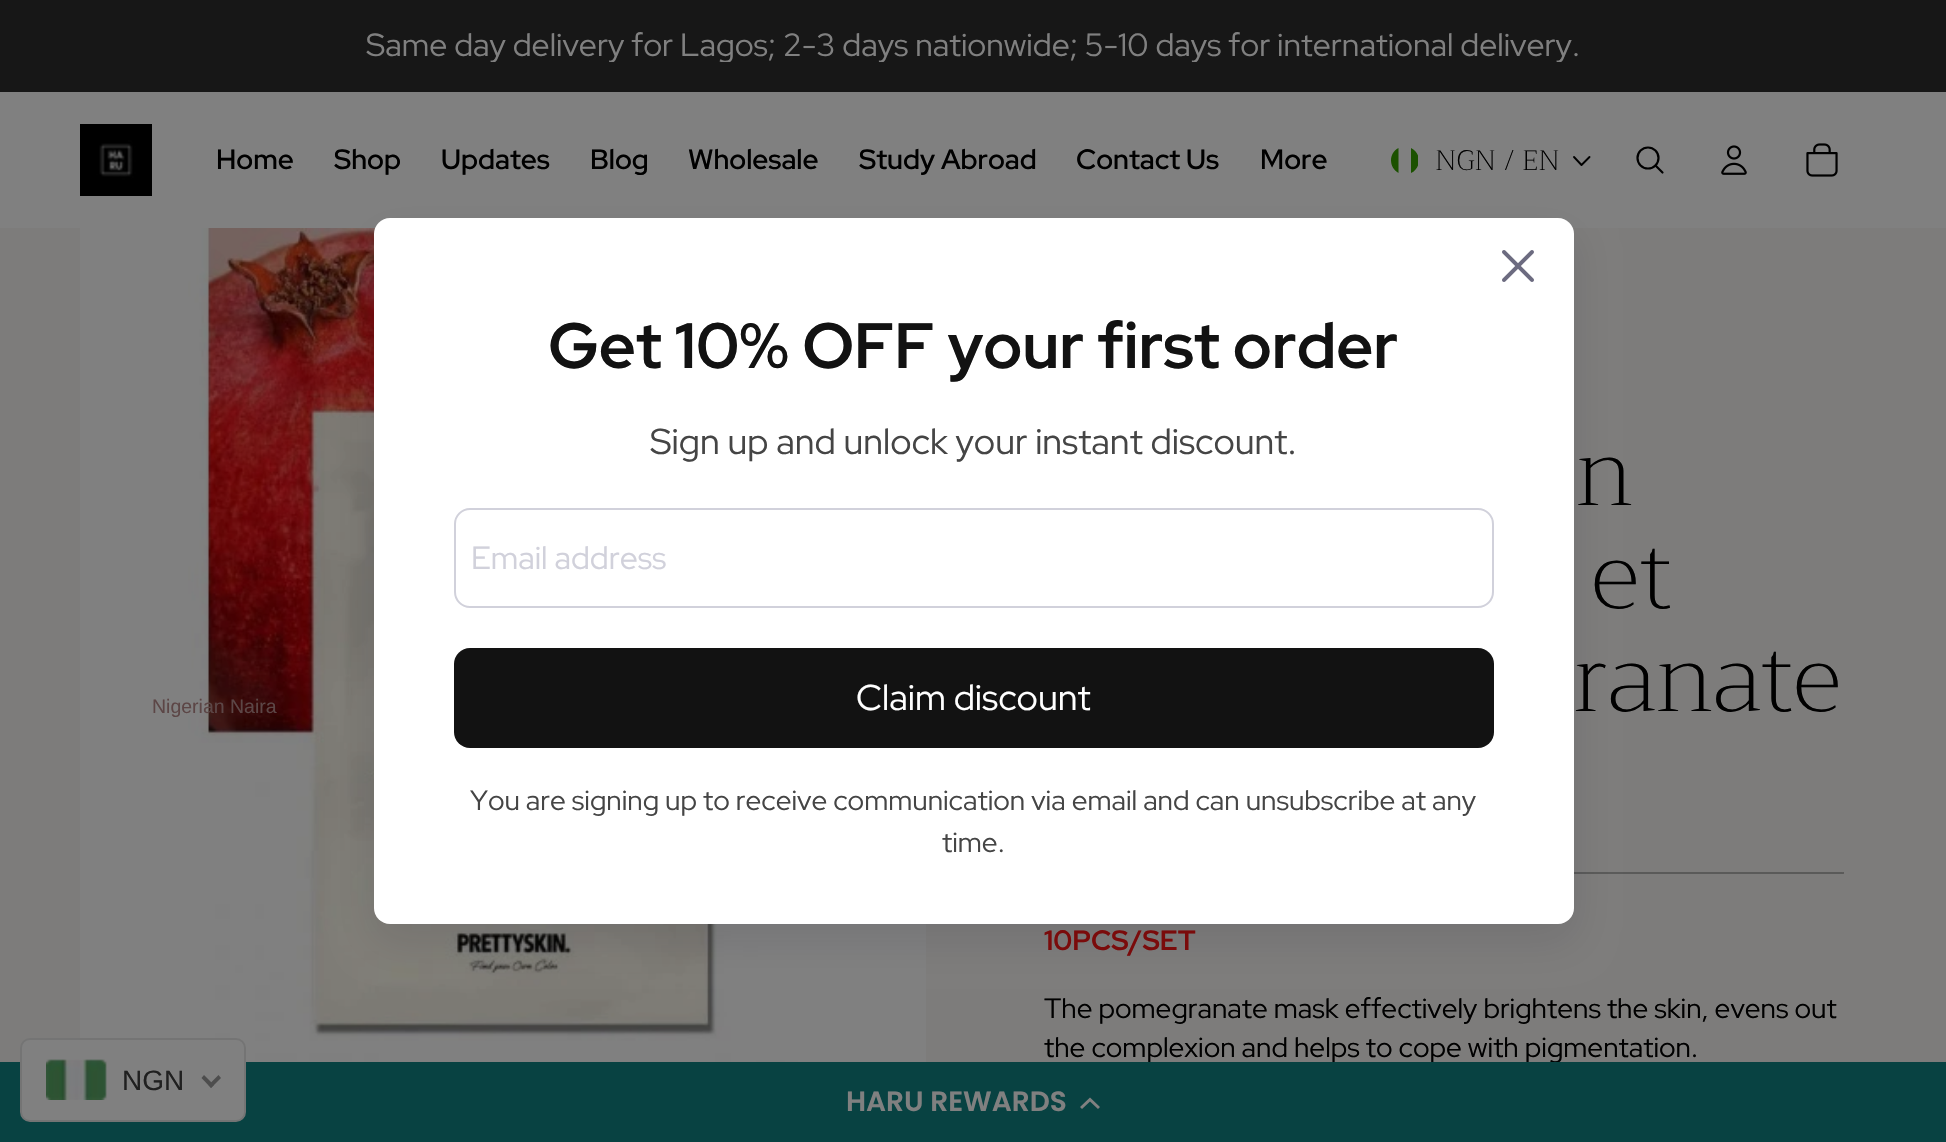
static SkFont makeFont(const char* family, int weight, float size, bool italic = false) {
  SkFontStyle style(weight, SkFontStyle::kNormal_Width,
    italic ? SkFontStyle::kItalic_Slant : SkFontStyle::kUpright_Slant);
  SkFont result(fontMgr->matchFamilyStyle(family, style), size);
  result.setSubpixel(true);
  return result;
}

static void text(SkCanvas* c, const char* s, float x, float y, const SkFont& font, SkColor color) {
  SkPaint ink(SkColor4f::FromColor(color));
  ink.setAntiAlias(true);
  c->drawString(s, x, y, font, ink);
}

static void box(SkCanvas* c, float l, float t, float r, float b, SkColor color) {
  SkPaint ink(SkColor4f::FromColor(color));
  ink.setAntiAlias(true);
  c->drawRect(SkRect::MakeLTRB(l, t, r, b), ink);
}

static void roundBox(SkCanvas* c, float l, float t, float r, float b, float radius, SkColor color) {
  SkPaint ink(SkColor4f::FromColor(color));
  ink.setAntiAlias(true);
  c->drawRoundRect(SkRect::MakeLTRB(l, t, r, b), radius, radius, ink);
}

static void picture(SkCanvas* c, const char* path, float l, float t, float r, float b) {
  auto image = SkImages::DeferredFromEncodedData(SkData::MakeFromFileName(path));
  c->drawImageRect(image, SkRect::MakeLTRB(l, t, r, b), SkSamplingOptions());
}

void draw(SkCanvas* c) {
  SkPaint paint;
  paint.setAntiAlias(true);
  c->clear(0xff7d7c7b);
  box(c, 0, 0, 1946, 92, 0xff171717);
  c->save();
  c->clipRect(SkRect::MakeLTRB(294, 30, 1654, 62));
  SkFont face1 = makeFont("Red Hat Display", 400, 32);
  text(c, "Same day delivery for Lagos; 2-3 days nationwide; 5-10 days for international delivery.", 366, 56, face1, 0xff808080);
  c->restore();
  box(c, 0, 92, 1946, 228, 0xff808080);
  picture(c, "img_01.png", 80, 124, 152, 196);
  SkFont face2 = makeFont("Red Hat Display", 600, 28);
  text(c, "Home", 216, 169, face2, 0xff000000);
  text(c, "Shop", 334, 169, face2, 0xff000000);
  text(c, "Updates", 441, 169, face2, 0xff000000);
  text(c, "Blog", 590, 169, face2, 0xff000000);
  text(c, "Wholesale", 688, 169, face2, 0xff000000);
  text(c, "Study Abroad", 859, 169, face2, 0xff000000);
  text(c, "Contact Us", 1076, 169, face2, 0xff000000);
  text(c, "More", 1260, 169, face2, 0xff000000);
  c->save();
  c->clipRect(SkRect::MakeLTRB(1390, 146, 1418, 174));
  paint.setColor(0xff1b5100);
  c->drawPath(SkPathBuilder(SkPathFillType::kEvenOdd).moveTo(1411, 148).cubicTo(1421.5f, 153, 1421.5f, 168, 1411, 173).close().moveTo(1398.5f, 148).lineTo(1398.5f, 173).cubicTo(1388.5f, 167.5f, 1388.5f, 153, 1398.5f, 148).close().detach(), paint);
  c->restore();
  SkFont face3 = makeFont("Trirong", 300, 28);
  text(c, "NGN", 1435, 170, face3, 0xff000000);
  text(c, "/", 1504, 170, face3, 0xff000000);
  text(c, "EN", 1522, 170, face3, 0xff000000);
  paint.setStyle(SkPaint::kStroke_Style);
  paint.setStrokeWidth(1.9f);
  paint.setStrokeCap(SkPaint::kRound_Cap);
  paint.setStrokeJoin(SkPaint::kRound_Join);
  paint.setColor(0xff000000);
  c->drawPath(SkPathBuilder().moveTo(1589.5f, 157).lineTo(1581.5f, 165).lineTo(1574, 157).detach(), paint);
  paint.setStrokeWidth(2.2f);
  paint.setStrokeCap(SkPaint::kButt_Cap);
  paint.setStrokeJoin(SkPaint::kMiter_Join);
  c->drawCircle(1648, 158, 10.5f, paint);
  paint.setStrokeCap(SkPaint::kRound_Cap);
  paint.setStrokeJoin(SkPaint::kRound_Join);
  c->drawPath(SkPathBuilder().moveTo(1655.5f, 165.5f).lineTo(1662.5f, 172.5f).detach(), paint);
  picture(c, "img_02.png", 1721, 145, 1747, 175);
  picture(c, "img_03.png", 1806, 143, 1838, 177);
  picture(c, "img_06.png", 80, 228, 926, 1062);
  paint.setStyle(SkPaint::kFill_Style);
  paint.setColor(0xff5a5a59);
  c->drawPath(SkPathBuilder().moveTo(1844, 872).lineTo(1844, 874).lineTo(1842, 872).close().detach(), paint);
  paint.setColor(0x47000000);
  c->drawPath(SkPathBuilder().moveTo(1844, 874).lineTo(1044, 874).lineTo(1044, 872).lineTo(1842, 872).close().detach(), paint);
  paint.setColor(0x1a121127);
  paint.setMaskFilter(SkMaskFilter::MakeBlur(kNormal_SkBlurStyle, 20));
  c->drawRoundRect(SkRect::MakeLTRB(374, 234, 1574, 940), 16, 16, paint);
  paint.setMaskFilter(nullptr);
  roundBox(c, 374, 218, 1574, 924, 16, 0xffffffff);
  picture(c, "img_04.png", 1502, 250, 1534, 282);
  SkFont face4 = makeFont("Red Hat Display", 700, 64);
  text(c, "Get 10% OFF your first order", 548, 368, face4, 0xff121212);
  SkFont face5 = makeFont("Red Hat Display", 400, 36);
  text(c, "Sign up and unlock your instant discount.", 650, 454, face5, 0xff454545);
  paint.setStyle(SkPaint::kStroke_Style);
  paint.setStrokeWidth(2);
  paint.setStrokeCap(SkPaint::kButt_Cap);
  paint.setStrokeJoin(SkPaint::kMiter_Join);
  paint.setColor(0xffd1d1db);
  c->drawRoundRect(SkRect::MakeLTRB(455, 509, 1493, 607), 15, 15, paint);
  text(c, "Email address", 471, 569, face1, 0xffd1d1db);
  roundBox(c, 454, 648, 1494, 748, 16, 0xff121212);
  text(c, "Claim discount", 856, 710, face5, 0xffffffff);
  SkFont face6 = makeFont("Red Hat Display", 400, 28);
  text(c, "You are signing up to receive communication via email and can unsubscribe at any", 470, 810, face6, 0xff454545);
  text(c, "time.", 942, 852, face6, 0xff454545);
  text(c, "the complexion and helps to cope with pigmentation.", 1044, 1057, face6, 0xff000000);
  box(c, 0, 1062, 1946, 1142, 0xff084242);
  paint.setStyle(SkPaint::kFill_Style);
  paint.setColor(0xff808080);
  c->drawRoundRect(SkRect::MakeLTRB(21, 1039, 245, 1121), 9, 9, paint);
  paint.setStyle(SkPaint::kStroke_Style);
  paint.setColor(0xff747474);
  c->drawRoundRect(SkRect::MakeLTRB(21, 1039, 245, 1121), 9, 9, paint);
  SkFont face7 = makeFont("Liberation Sans", 400, 19.5f);
  text(c, "Nigerian Naira", 152, 713, face7, 0xff5c4646);
  picture(c, "img_05.png", 46, 1059, 107, 1100);
  SkFont face8 = makeFont("Liberation Sans", 400, 28);
  text(c, "NGN", 122, 1090, face8, 0xff202020);
  paint.setStyle(SkPaint::kFill_Style);
  paint.setColor(0xff4d4d4d);
  c->drawPath(SkPathBuilder().moveTo(218.5f, 1075).lineTo(221, 1078).lineTo(211, 1088).lineTo(208.5f, 1085).close().detach(), paint);
  c->drawPath(SkPathBuilder().moveTo(204, 1075).lineTo(214, 1085).lineTo(211, 1088).lineTo(201.5f, 1078).close().detach(), paint);
  SkFont face9 = makeFont("Trirong", 300, 93.5f);
  text(c, "n", 1575, 505, face9, 0xff000000);
  text(c, "et", 1592, 608, face9, 0xff000000);
  text(c, "ranate", 1574, 711, face9, 0xff000000);
  SkFont face10 = makeFont("Red Hat Display", 700, 28);
  text(c, "10PCS/SET", 1044, 950, face10, 0xff7a0b0b);
  text(c, "The pomegranate mask effectively brightens the skin, evens out", 1044, 1018, face6, 0xff000000);
  SkFont face11 = makeFont("Poppins", 600, 28);
  text(c, "HARU REWARDS", 846, 1111, face11, 0xff808080);
  paint.setColor(0xff808080);
  c->drawPath(SkPathBuilder().moveTo(1090, 1101.5f).lineTo(1082, 1109).lineTo(1080, 1107).lineTo(1090, 1097.5f).lineTo(1100, 1107).lineTo(1098, 1109).close().detach(), paint);
}
